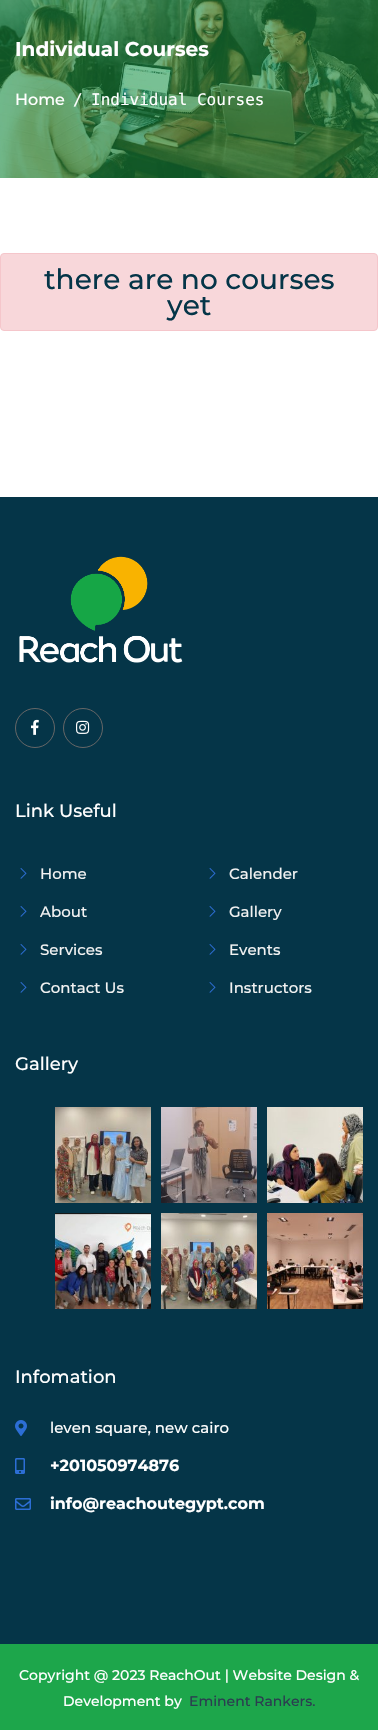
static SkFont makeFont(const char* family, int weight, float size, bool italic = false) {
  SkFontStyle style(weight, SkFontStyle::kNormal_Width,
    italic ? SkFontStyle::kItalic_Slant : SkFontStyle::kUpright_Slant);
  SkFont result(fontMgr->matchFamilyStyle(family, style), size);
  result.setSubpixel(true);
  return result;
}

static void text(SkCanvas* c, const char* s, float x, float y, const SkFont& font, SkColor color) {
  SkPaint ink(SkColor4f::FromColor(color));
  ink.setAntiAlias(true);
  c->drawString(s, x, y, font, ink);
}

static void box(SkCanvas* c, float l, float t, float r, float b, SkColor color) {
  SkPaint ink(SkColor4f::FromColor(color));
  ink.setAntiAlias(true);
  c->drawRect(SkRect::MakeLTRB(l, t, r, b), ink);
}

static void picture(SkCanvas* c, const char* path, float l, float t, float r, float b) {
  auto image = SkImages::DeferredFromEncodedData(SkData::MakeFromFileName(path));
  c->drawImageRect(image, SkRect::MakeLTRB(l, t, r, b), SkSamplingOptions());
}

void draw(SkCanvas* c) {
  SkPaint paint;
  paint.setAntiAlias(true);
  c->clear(0xffffffff);
  picture(c, "img_01.png", 0, 0, 378, 178);
  SkFont face1 = makeFont("Montserrat", 700, 20);
  text(c, "Individual Courses", 15, 56, face1, 0xffffffff);
  SkFont face2 = makeFont("Montserrat", 500, 16);
  text(c, "Home", 15, 105, face2, 0xffffffff);
  SkFont face3 = makeFont("DejaVu Sans Mono", 400, 16);
  text(c, "/", 73, 105, face3, 0xffffffff);
  text(c, "Individual Courses", 91, 105, face3, 0xffffffff);
  paint.setColor(0xfff8d7da);
  c->drawRoundRect(SkRect::MakeLTRB(0.5f, 253.5f, 377.5f, 330.5f), 3.5f, 3.5f, paint);
  paint.setStyle(SkPaint::kStroke_Style);
  paint.setStrokeWidth(1);
  paint.setColor(0xfff5c6cb);
  c->drawRoundRect(SkRect::MakeLTRB(0.5f, 253.5f, 377.5f, 330.5f), 3.5f, 3.5f, paint);
  SkFont face4 = makeFont("Montserrat", 500, 28);
  text(c, "there are no courses", 44, 289, face4, 0xff053548);
  text(c, "yet", 167, 315, face4, 0xff053548);
  box(c, 0, 497, 378, 1644, 0xff053548);
  picture(c, "img_02.png", 19, 556, 183, 663);
  paint.setColor(0xff666666);
  c->drawCircle(35, 728, 19.5f, paint);
  picture(c, "img_03.png", 31, 719, 39, 735);
  c->drawCircle(83, 728, 19.5f, paint);
  picture(c, "img_04.png", 76, 720, 90, 734);
  SkFont face5 = makeFont("Montserrat", 500, 18);
  text(c, "Link Useful", 15, 817, face5, 0xffffffff);
  picture(c, "img_05.png", 20, 868, 27, 879);
  SkFont face6 = makeFont("Montserrat", 500, 15);
  text(c, "Home", 40, 879, face6, 0xfff2f2f2);
  picture(c, "img_05.png", 20, 906, 27, 917);
  text(c, "About", 40, 917, face6, 0xfff2f2f2);
  picture(c, "img_05.png", 20, 944, 27, 955);
  text(c, "Services", 40, 955, face6, 0xfff2f2f2);
  picture(c, "img_05.png", 20, 982, 27, 993);
  text(c, "Contact Us", 40, 993, face6, 0xfff2f2f2);
  picture(c, "img_05.png", 209, 868, 216, 879);
  text(c, "Calender", 229, 879, face6, 0xfff2f2f2);
  picture(c, "img_05.png", 209, 906, 216, 917);
  text(c, "Gallery", 229, 917, face6, 0xfff2f2f2);
  picture(c, "img_05.png", 209, 944, 216, 955);
  text(c, "Events", 229, 955, face6, 0xfff2f2f2);
  picture(c, "img_05.png", 209, 982, 216, 993);
  text(c, "Instructors", 229, 993, face6, 0xfff2f2f2);
  text(c, "Gallery", 15, 1070, face5, 0xffffffff);
  picture(c, "img_06.png", 55, 1107, 151, 1203);
  picture(c, "img_07.png", 161, 1107, 257, 1203);
  picture(c, "img_08.png", 267, 1107, 363, 1203);
  picture(c, "img_09.png", 55, 1213, 151, 1309);
  picture(c, "img_10.png", 161, 1213, 257, 1309);
  picture(c, "img_11.png", 267, 1213, 363, 1309);
  text(c, "Infomation", 15, 1383, face5, 0xffffffff);
  picture(c, "img_12.png", 15, 1420, 27, 1436);
  text(c, "leven square, new cairo", 50, 1433, face6, 0xffffffff);
  picture(c, "img_13.png", 15, 1458, 25, 1474);
  SkFont face7 = makeFont("Montserrat", 700, 16);
  text(c, "+201050974876", 50, 1471, face7, 0xffffffff);
  picture(c, "img_14.png", 15, 1498, 31, 1510);
  text(c, "info@reachoutegypt.com", 50, 1509, face7, 0xffffffff);
  box(c, 0, 1644, 378, 1730, 0xff1da64b);
  SkFont face8 = makeFont("Montserrat", 500, 14);
  text(c, "Copyright @ 2023 ReachOut | Website Design &", 19, 1680, face8, 0xffffffff);
  text(c, "Development by", 63, 1706, face8, 0xffffffff);
  text(c, "Eminent Rankers.", 189, 1706, face8, 0xff2b3e50);
}
